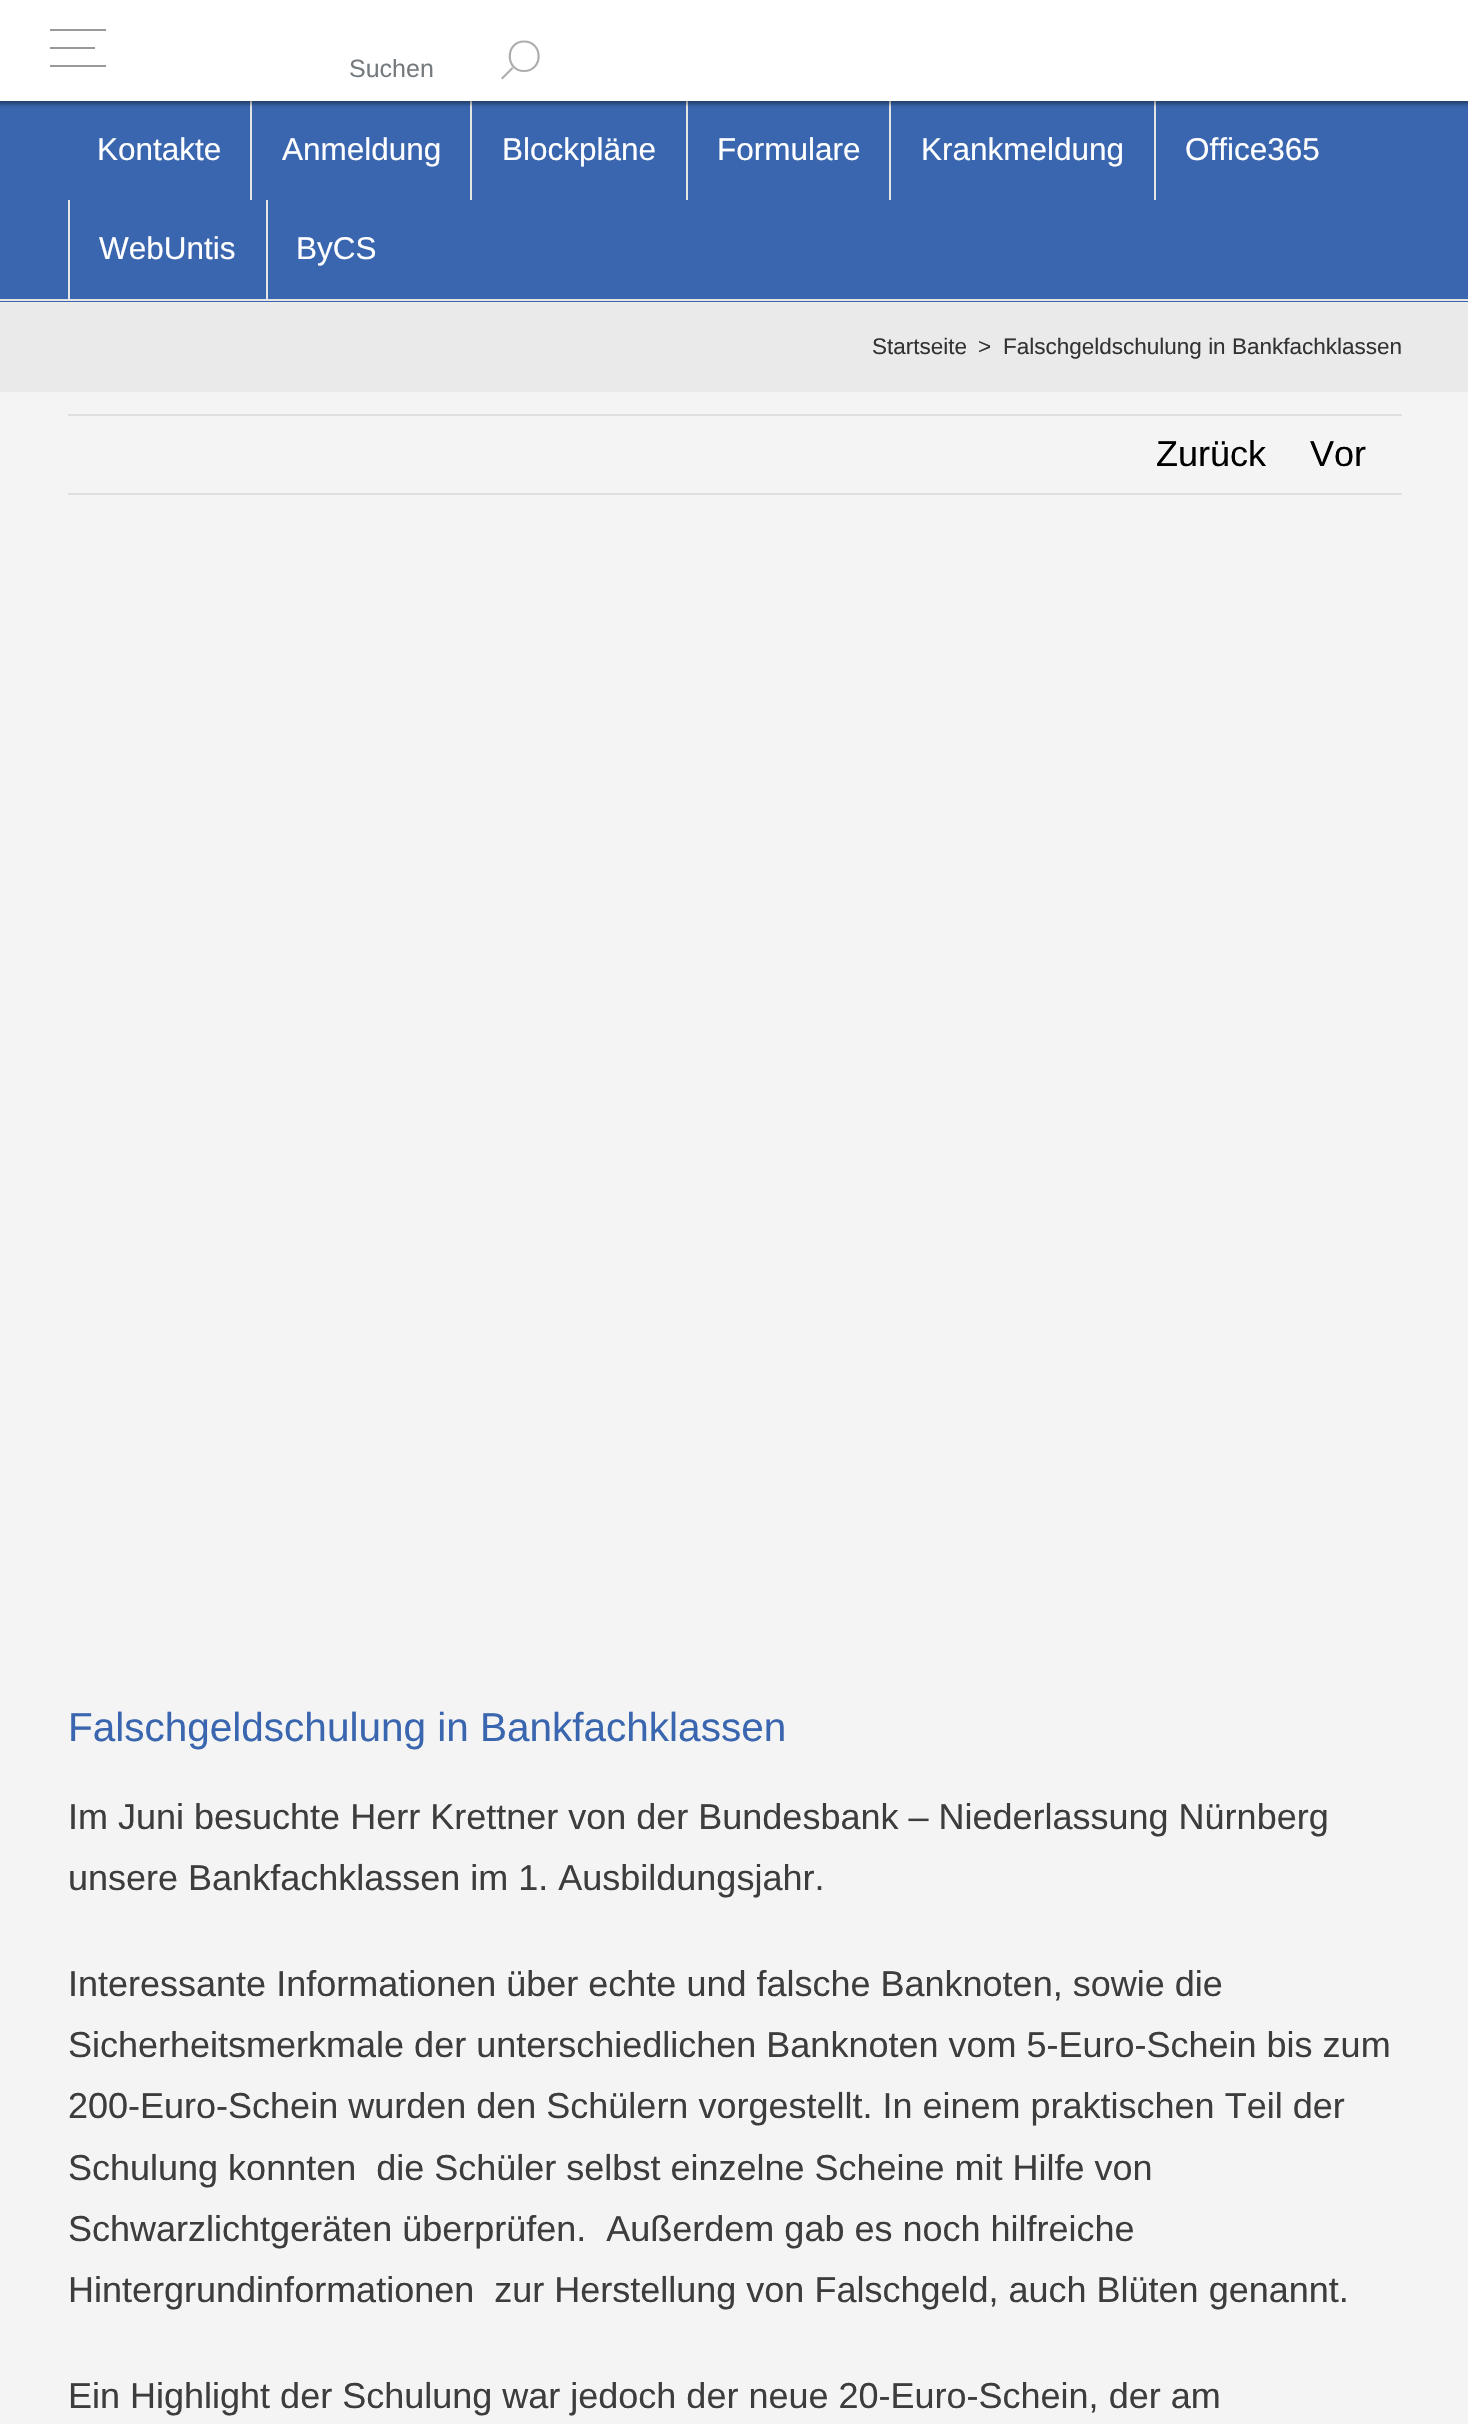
static SkFont makeFont(const char* family, int weight, float size, bool italic = false) {
  SkFontStyle style(weight, SkFontStyle::kNormal_Width,
    italic ? SkFontStyle::kItalic_Slant : SkFontStyle::kUpright_Slant);
  SkFont result(fontMgr->matchFamilyStyle(family, style), size);
  result.setSubpixel(true);
  return result;
}

static void text(SkCanvas* c, const char* s, float x, float y, const SkFont& font, SkColor color) {
  SkPaint ink(SkColor4f::FromColor(color));
  ink.setAntiAlias(true);
  c->drawString(s, x, y, font, ink);
}

static void box(SkCanvas* c, float l, float t, float r, float b, SkColor color) {
  SkPaint ink(SkColor4f::FromColor(color));
  ink.setAntiAlias(true);
  c->drawRect(SkRect::MakeLTRB(l, t, r, b), ink);
}

void draw(SkCanvas* c) {
  SkPaint paint;
  paint.setAntiAlias(true);
  c->clear(0xffeaeaea);
  box(c, 0, 101, 1468, 302, 0xff3a66af);
  box(c, 250, 101, 252, 200, 0xffe5e5e5);
  box(c, 470, 101, 472, 200, 0xffe5e5e5);
  box(c, 686, 101, 688, 200, 0xffe5e5e5);
  box(c, 889, 101, 891, 200, 0xffe5e5e5);
  box(c, 1154, 101, 1156, 200, 0xffe5e5e5);
  paint.setColor(0x66000000);
  paint.setMaskFilter(SkMaskFilter::MakeBlur(kNormal_SkBlurStyle, 2));
  c->drawRect(SkRect::MakeLTRB(-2, -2, 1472, 104), paint);
  paint.setMaskFilter(nullptr);
  box(c, 0, 0, 1468, 101, 0xffffffff);
  box(c, 50, 29, 106, 31, 0xff999999);
  box(c, 50, 47, 95, 49, 0xff999999);
  box(c, 50, 65, 106, 67, 0xff999999);
  SkFont face1 = makeFont("Liberation Sans", 400, 25);
  text(c, "Suchen", 349, 77, face1, 0xff747a7d);
  paint.setStyle(SkPaint::kStroke_Style);
  paint.setStrokeWidth(2.2f);
  paint.setColor(0xffadadad);
  c->drawPath(SkPathBuilder().moveTo(524, 41.5f).cubicTo(505, 41.5f, 505, 71, 524, 71).cubicTo(543.5f, 71, 543.5f, 41.5f, 524, 41.5f).close().detach(), paint);
  paint.setStyle(SkPaint::kFill_Style);
  c->drawPath(SkPathBuilder().moveTo(512, 67).lineTo(501, 78).lineTo(502.5f, 79.5f).lineTo(513.5f, 68.5f).close().detach(), paint);
  box(c, 0, 299, 1468, 301, 0xffe5e5e5);
  SkFont face2 = makeFont("Liberation Sans", 400, 31.5f);
  text(c, "Kontakte", 97, 160, face2, 0xffffffff);
  text(c, "Anmeldung", 282, 160, face2, 0xffffffff);
  text(c, "Blockpläne", 502, 160, face2, 0xffffffff);
  text(c, "Formulare", 717, 160, face2, 0xffffffff);
  text(c, "Krankmeldung", 921, 160, face2, 0xffffffff);
  text(c, "Office365", 1185, 160, face2, 0xffffffff);
  box(c, 68, 200, 70, 299, 0xffe5e5e5);
  text(c, "WebUntis", 99, 259, face2, 0xffffffff);
  box(c, 266, 200, 268, 299, 0xffe5e5e5);
  text(c, "ByCS", 296, 259, face2, 0xffffffff);
  box(c, 0, 302, 1468, 304, 0xffedeaea);
  box(c, 0, 389, 1468, 391, 0xffedeaea);
  SkFont face3 = makeFont("Liberation Sans", 400, 22.5f);
  text(c, "Startseite", 872, 354, face3, 0xff333333);
  text(c, ">", 978, 354, face3, 0xff333333);
  text(c, "Falschgeldschulung in Bankfachklassen", 1003, 354, face3, 0xff333333);
  box(c, 0, 392, 1468, 2424, 0xfff4f4f4);
  box(c, 68, 414, 1402, 416, 0xffe0dede);
  box(c, 68, 493, 1402, 495, 0xffe0dede);
  SkFont face4 = makeFont("Liberation Sans", 400, 36);
  text(c, "Zurück", 1156, 466, face4, 0xff000000);
  text(c, "Vor", 1310, 466, face4, 0xff000000);
  SkFont face5 = makeFont("Liberation Sans", 400, 40.5f);
  text(c, "Falschgeldschulung in Bankfachklassen", 68, 1741, face5, 0xff3a66af);
  text(c, "Im Juni besuchte Herr Krettner von der Bundesbank – Niederlassung Nürnberg", 68, 1829, face4, 0xff3d3d3d);
  text(c, "unsere Bankfachklassen im 1. Ausbildungsjahr.", 68, 1890, face4, 0xff3d3d3d);
  text(c, "Interessante Informationen über echte und falsche Banknoten, sowie die", 68, 1996, face4, 0xff3d3d3d);
  text(c, "Sicherheitsmerkmale der unterschiedlichen Banknoten vom 5-Euro-Schein bis zum", 68, 2057, face4, 0xff3d3d3d);
  text(c, "200-Euro-Schein wurden den Schülern vorgestellt. In einem praktischen Teil der", 68, 2118, face4, 0xff3d3d3d);
  text(c, "Schulung konnten  die Schüler selbst einzelne Scheine mit Hilfe von", 68, 2180, face4, 0xff3d3d3d);
  text(c, "Schwarzlichtgeräten überprüfen.  Außerdem gab es noch hilfreiche", 68, 2241, face4, 0xff3d3d3d);
  text(c, "Hintergrundinformationen  zur Herstellung von Falschgeld, auch Blüten genannt.", 68, 2302, face4, 0xff3d3d3d);
  text(c, "Ein Highlight der Schulung war jedoch der neue 20-Euro-Schein, der am", 68, 2408, face4, 0xff3d3d3d);
}
